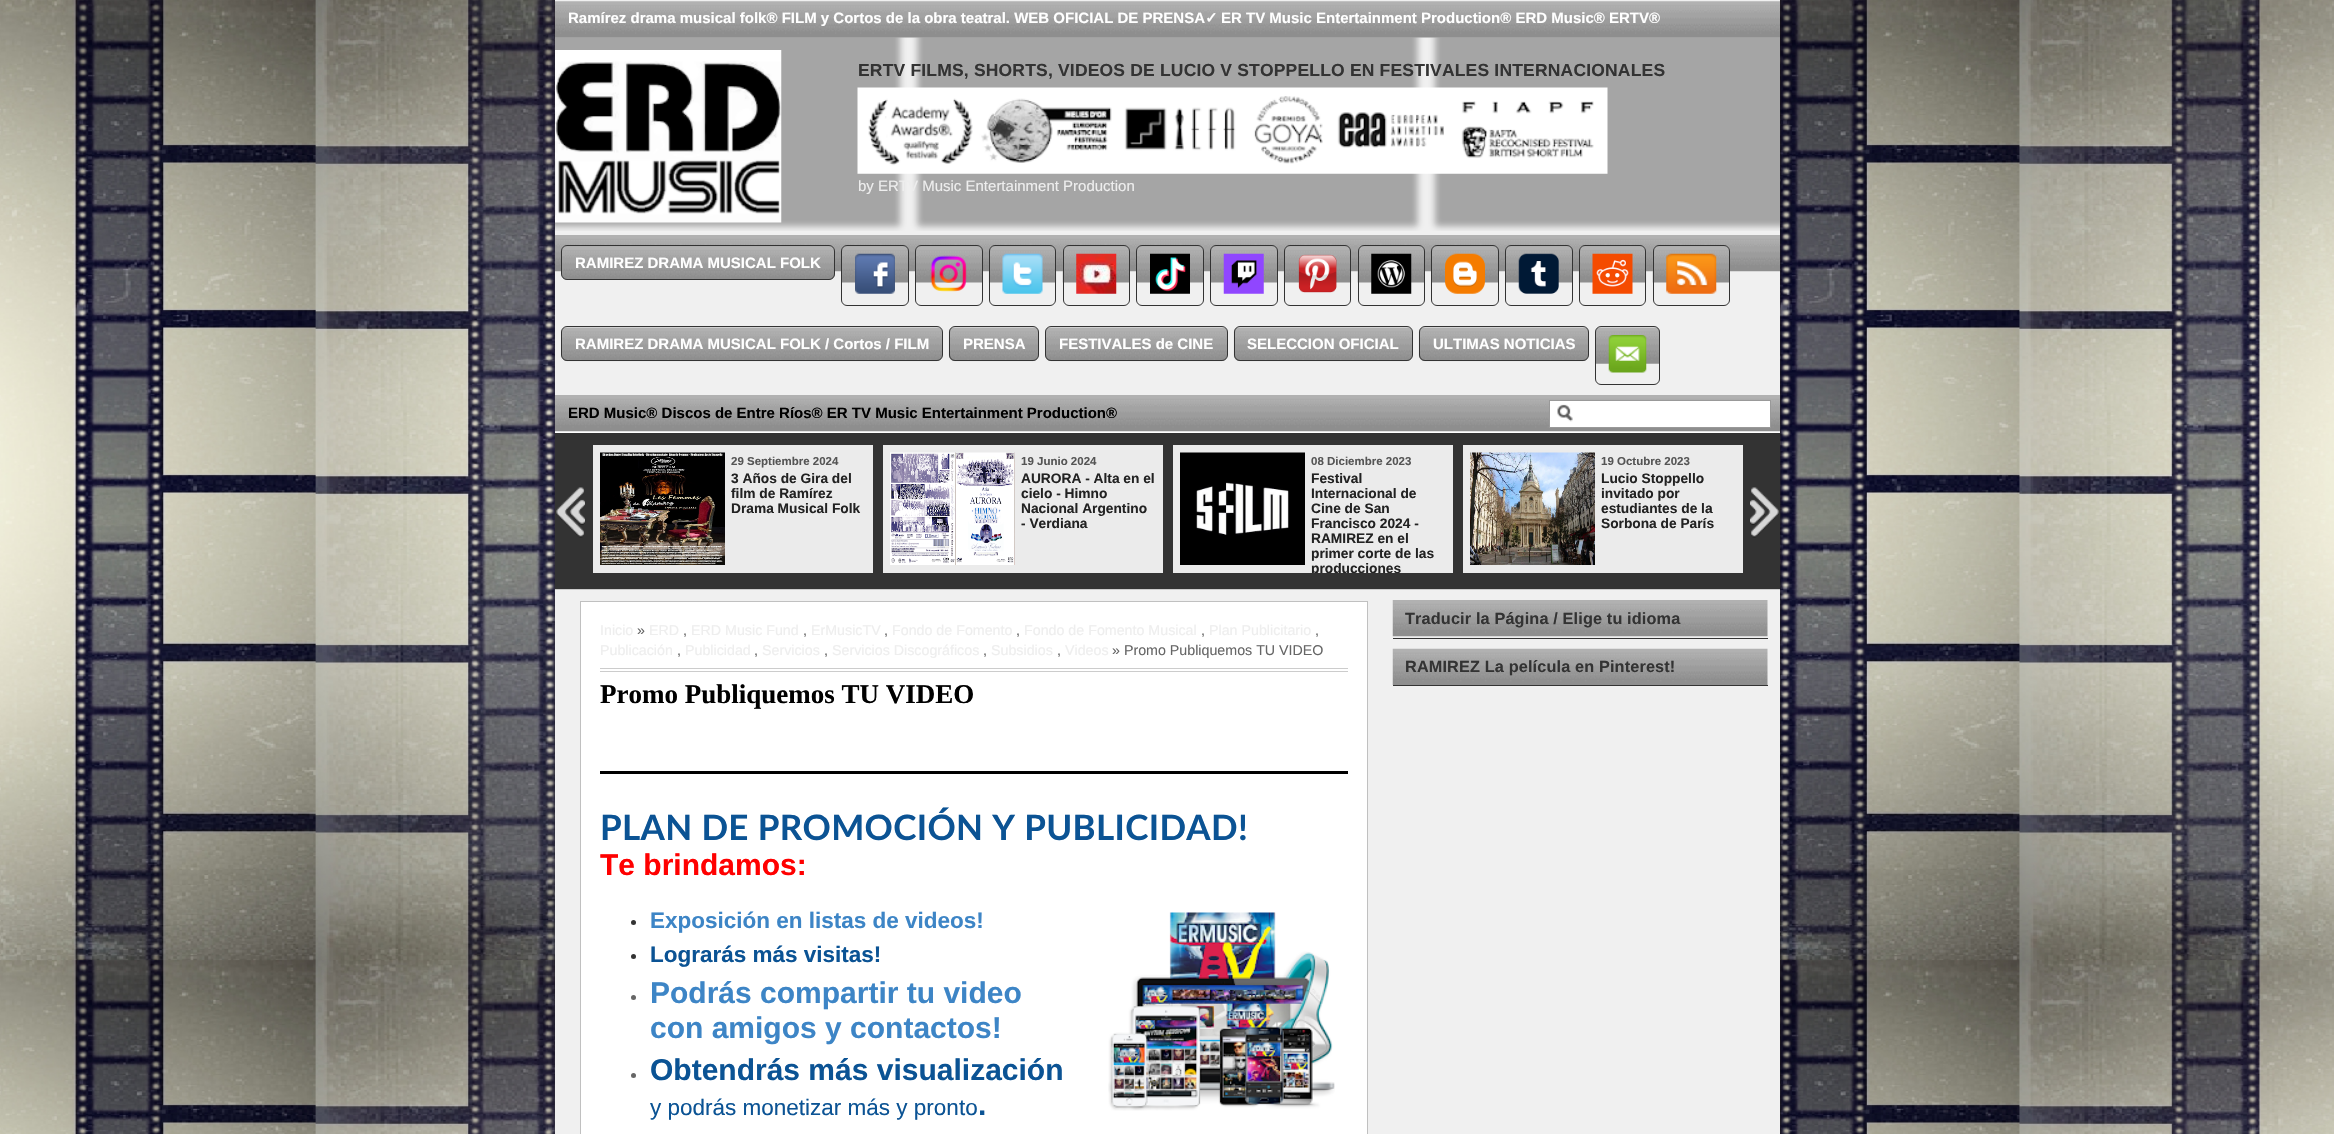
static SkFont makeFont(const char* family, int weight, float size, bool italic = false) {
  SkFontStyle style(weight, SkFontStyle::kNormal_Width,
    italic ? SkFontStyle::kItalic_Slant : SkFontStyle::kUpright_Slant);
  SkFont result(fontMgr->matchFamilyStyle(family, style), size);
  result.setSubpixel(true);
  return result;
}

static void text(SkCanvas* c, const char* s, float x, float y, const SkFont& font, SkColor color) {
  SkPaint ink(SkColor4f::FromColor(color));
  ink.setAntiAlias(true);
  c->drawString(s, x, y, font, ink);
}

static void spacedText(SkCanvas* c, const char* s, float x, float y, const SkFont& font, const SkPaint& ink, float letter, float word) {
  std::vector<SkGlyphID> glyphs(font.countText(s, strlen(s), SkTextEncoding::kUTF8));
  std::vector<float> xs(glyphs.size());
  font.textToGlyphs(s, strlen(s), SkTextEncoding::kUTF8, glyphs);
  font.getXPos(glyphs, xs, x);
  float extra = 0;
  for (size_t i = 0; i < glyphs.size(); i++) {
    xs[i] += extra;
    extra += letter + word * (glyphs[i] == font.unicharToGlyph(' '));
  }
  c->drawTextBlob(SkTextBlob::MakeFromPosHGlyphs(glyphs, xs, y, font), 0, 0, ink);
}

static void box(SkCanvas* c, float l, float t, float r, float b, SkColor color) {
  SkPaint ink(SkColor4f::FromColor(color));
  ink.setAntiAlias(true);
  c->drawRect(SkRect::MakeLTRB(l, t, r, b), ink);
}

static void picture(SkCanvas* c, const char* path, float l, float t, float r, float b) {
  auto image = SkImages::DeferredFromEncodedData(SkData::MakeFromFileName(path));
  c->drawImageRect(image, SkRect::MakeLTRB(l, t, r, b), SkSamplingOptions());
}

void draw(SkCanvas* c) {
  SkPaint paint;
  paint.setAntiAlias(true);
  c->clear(0xffffffff);
  picture(c, "img_01.png", 0, 0, 2334, 1134);
  box(c, 555, 0, 1780, 1134, 0xfff0f0f0);
  picture(c, "img_02.png", 555, 1, 1780, 38);
  SkFont face1 = makeFont("Liberation Sans", 700, 15);
  text(c, "Ramírez drama musical folk® FILM y Cortos de la obra teatral. WEB OFICIAL DE PRENSA", 568, 23, face1, 0xffffffff);
  SkFont face2 = makeFont("DejaVu Sans", 700, 15);
  text(c, "✓", 1205, 23, face2, 0xffffffff);
  text(c, "ER TV Music Entertainment Production® ERD Music® ERTV®", 1221, 23, face1, 0xffffffff);
  picture(c, "img_03.png", 555, 37, 1780, 231);
  picture(c, "img_04.png", 555, 50, 782, 223);
  SkFont face3 = makeFont("Liberation Sans", 700, 17.5f);
  paint.setColor(0xff333333);
  spacedText(c, "ERTV FILMS, SHORTS, VIDEOS DE LUCIO V STOPPELLO EN FESTIVALES INTERNACIONALES", 858, 76, face3, paint, 0.18f, 0);
  picture(c, "img_05.png", 857, 87, 1608, 174);
  SkFont face4 = makeFont("Liberation Sans", 400, 15);
  text(c, "by ERTV Music Entertainment Production", 858, 191, face4, 0xffeeeeee);
  picture(c, "img_06.png", 555, 235, 1780, 272);
  picture(c, "img_07.png", 561, 246, 835, 280);
  paint.setStyle(SkPaint::kStroke_Style);
  paint.setStrokeWidth(1);
  c->drawRoundRect(SkRect::MakeLTRB(561.5f, 245.5f, 834.5f, 279.5f), 5.5f, 5.5f, paint);
  text(c, "RAMIREZ DRAMA MUSICAL FOLK", 575, 268, face1, 0xffffffff);
  picture(c, "img_08.png", 841, 246, 909, 283);
  c->drawRoundRect(SkRect::MakeLTRB(841.5f, 245.5f, 908.5f, 305.5f), 5.5f, 5.5f, paint);
  picture(c, "img_09.png", 855, 253, 895, 294);
  picture(c, "img_10.png", 915, 246, 983, 283);
  c->drawRoundRect(SkRect::MakeLTRB(915.5f, 245.5f, 982.5f, 305.5f), 5.5f, 5.5f, paint);
  picture(c, "img_11.png", 930, 255, 967, 292);
  picture(c, "img_12.png", 988, 246, 1057, 283);
  c->drawRoundRect(SkRect::MakeLTRB(989.5f, 245.5f, 1055.5f, 305.5f), 5.5f, 5.5f, paint);
  picture(c, "img_13.png", 1002, 253, 1043, 294);
  picture(c, "img_14.png", 1062, 246, 1130, 283);
  c->drawRoundRect(SkRect::MakeLTRB(1063.5f, 245.5f, 1129.5f, 305.5f), 5.5f, 5.5f, paint);
  picture(c, "img_15.png", 1076, 253, 1117, 294);
  picture(c, "img_16.png", 1136, 246, 1204, 283);
  c->drawRoundRect(SkRect::MakeLTRB(1136.5f, 245.5f, 1203.5f, 305.5f), 5.5f, 5.5f, paint);
  picture(c, "img_17.png", 1150, 253, 1190, 294);
  picture(c, "img_18.png", 1210, 246, 1278, 283);
  c->drawRoundRect(SkRect::MakeLTRB(1210.5f, 245.5f, 1277.5f, 305.5f), 5.5f, 5.5f, paint);
  picture(c, "img_19.png", 1223, 253, 1264, 294);
  picture(c, "img_20.png", 1283, 246, 1352, 283);
  c->drawRoundRect(SkRect::MakeLTRB(1284.5f, 245.5f, 1350.5f, 305.5f), 5.5f, 5.5f, paint);
  picture(c, "img_21.png", 1298, 254, 1337, 293);
  picture(c, "img_22.png", 1357, 246, 1425, 283);
  c->drawRoundRect(SkRect::MakeLTRB(1358.5f, 245.5f, 1424.5f, 305.5f), 5.5f, 5.5f, paint);
  picture(c, "img_23.png", 1371, 253, 1412, 294);
  picture(c, "img_24.png", 1431, 246, 1499, 283);
  c->drawRoundRect(SkRect::MakeLTRB(1431.5f, 245.5f, 1498.5f, 305.5f), 5.5f, 5.5f, paint);
  picture(c, "img_25.png", 1445, 253, 1485, 294);
  picture(c, "img_26.png", 1505, 246, 1573, 283);
  c->drawRoundRect(SkRect::MakeLTRB(1505.5f, 245.5f, 1572.5f, 305.5f), 5.5f, 5.5f, paint);
  picture(c, "img_27.png", 1518, 253, 1559, 294);
  picture(c, "img_28.png", 1578, 246, 1647, 283);
  c->drawRoundRect(SkRect::MakeLTRB(1579.5f, 245.5f, 1645.5f, 305.5f), 5.5f, 5.5f, paint);
  picture(c, "img_29.png", 1592, 253, 1633, 294);
  picture(c, "img_30.png", 1652, 246, 1730, 283);
  c->drawRoundRect(SkRect::MakeLTRB(1653.5f, 245.5f, 1729.5f, 305.5f), 5.5f, 5.5f, paint);
  picture(c, "img_31.png", 1666, 253, 1717, 294);
  picture(c, "img_32.png", 561, 327, 943, 362);
  c->drawRoundRect(SkRect::MakeLTRB(561.5f, 326.5f, 942.5f, 360.5f), 5.5f, 5.5f, paint);
  text(c, "RAMIREZ DRAMA MUSICAL FOLK / Cortos / FILM", 575, 349, face1, 0xffffffff);
  picture(c, "img_33.png", 948, 327, 1039, 362);
  c->drawRoundRect(SkRect::MakeLTRB(949.5f, 326.5f, 1038.5f, 360.5f), 5.5f, 5.5f, paint);
  text(c, "PRENSA", 963, 349, face1, 0xffffffff);
  picture(c, "img_34.png", 1045, 327, 1228, 362);
  c->drawRoundRect(SkRect::MakeLTRB(1045.5f, 326.5f, 1227.5f, 360.5f), 5.5f, 5.5f, paint);
  text(c, "FESTIVALES de CINE", 1059, 349, face1, 0xffffffff);
  picture(c, "img_35.png", 1233, 327, 1413, 362);
  c->drawRoundRect(SkRect::MakeLTRB(1234.5f, 326.5f, 1412.5f, 360.5f), 5.5f, 5.5f, paint);
  text(c, "SELECCION OFICIAL", 1247, 349, face1, 0xffffffff);
  picture(c, "img_36.png", 1418, 327, 1589, 362);
  c->drawRoundRect(SkRect::MakeLTRB(1419.5f, 326.5f, 1588.5f, 360.5f), 5.5f, 5.5f, paint);
  text(c, "ULTIMAS NOTICIAS", 1433, 349, face1, 0xffffffff);
  picture(c, "img_37.png", 1595, 327, 1660, 364);
  c->drawRoundRect(SkRect::MakeLTRB(1595.5f, 326.5f, 1659.5f, 384.5f), 5.5f, 5.5f, paint);
  picture(c, "img_38.png", 1608, 335, 1647, 373);
  box(c, 555, 431, 1780, 433, 0xffffffff);
  picture(c, "img_39.png", 555, 395, 1780, 432);
  text(c, "ERD Music® Discos de Entre Ríos® ER TV Music Entertainment Production®", 568, 418, face1, 0xff000000);
  box(c, 1550, 401, 1770, 427, 0xffffffff);
  picture(c, "img_40.png", 1557, 404, 1573, 422);
  paint.setColor(0xff999999);
  c->drawRect(SkRect::MakeLTRB(1549.5f, 400.5f, 1770.5f, 427.5f), paint);
  box(c, 555, 433, 1780, 589, 0xff333333);
  box(c, 555, 589, 1780, 590, 0xffcccccc);
  picture(c, "img_41.png", 556, 487, 585, 538);
  box(c, 593, 445, 873, 573, 0xffebebeb);
  picture(c, "img_42.png", 600, 452, 725, 565);
  SkFont face5 = makeFont("Liberation Sans", 700, 11.5f);
  text(c, "29 Septiembre 2024", 731, 465, face5, 0xff555555);
  SkFont face6 = makeFont("Liberation Sans", 700, 13.75f);
  text(c, "3 Años de Gira del", 731, 483, face6, 0xff222222);
  text(c, "film de Ramírez", 731, 498, face6, 0xff222222);
  text(c, "Drama Musical Folk", 731, 513, face6, 0xff222222);
  box(c, 883, 445, 1163, 573, 0xffebebeb);
  picture(c, "img_43.png", 890, 452, 1015, 565);
  text(c, "19 Junio 2024", 1021, 465, face5, 0xff555555);
  text(c, "AURORA - Alta en el", 1021, 483, face6, 0xff222222);
  text(c, "cielo - Himno", 1021, 498, face6, 0xff222222);
  text(c, "Nacional Argentino", 1021, 513, face6, 0xff222222);
  text(c, "- Verdiana", 1021, 528, face6, 0xff222222);
  box(c, 1173, 445, 1453, 573, 0xffebebeb);
  picture(c, "img_44.png", 1180, 452, 1305, 565);
  text(c, "08 Diciembre 2023", 1311, 465, face5, 0xff555555);
  text(c, "Festival", 1311, 483, face6, 0xff222222);
  text(c, "Internacional de", 1311, 498, face6, 0xff222222);
  text(c, "Cine de San", 1311, 513, face6, 0xff222222);
  text(c, "Francisco 2024 -", 1311, 528, face6, 0xff222222);
  text(c, "RAMIREZ en el", 1311, 543, face6, 0xff222222);
  text(c, "primer corte de las", 1311, 558, face6, 0xff222222);
  c->save();
  c->clipRect(SkRect::MakeLTRB(1173, 445, 1453, 573));
  text(c, "producciones", 1311, 573, face6, 0xff222222);
  c->restore();
  box(c, 1463, 445, 1743, 573, 0xffebebeb);
  picture(c, "img_45.png", 1470, 452, 1595, 565);
  text(c, "19 Octubre 2023", 1601, 465, face5, 0xff555555);
  text(c, "Lucio Stoppello", 1601, 483, face6, 0xff222222);
  text(c, "invitado por", 1601, 498, face6, 0xff222222);
  text(c, "estudiantes de la", 1601, 513, face6, 0xff222222);
  text(c, "Sorbona de París", 1601, 528, face6, 0xff222222);
  picture(c, "img_46.png", 1750, 487, 1779, 538);
  paint.setStyle(SkPaint::kFill_Style);
  paint.setColor(0xffffffff);
  c->drawRect(SkRect::MakeLTRB(580.5f, 601.5f, 1367.5f, 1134.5f), paint);
  paint.setStyle(SkPaint::kStroke_Style);
  paint.setColor(0xffc0c0c0);
  c->drawRect(SkRect::MakeLTRB(580.5f, 601.5f, 1367.5f, 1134.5f), paint);
  box(c, 600, 668, 1348, 669, 0xffcccccc);
  box(c, 600, 671, 1348, 672, 0xffcccccc);
  SkFont face7 = makeFont("Liberation Sans", 400, 14.25f);
  text(c, "Inicio", 600, 635, face7, 0xffeeeeee);
  text(c, "»", 637, 635, face7, 0xff666666);
  text(c, "ERD", 649, 635, face7, 0xffeeeeee);
  text(c, "ERD Music Fund", 691, 635, face7, 0xffeeeeee);
  text(c, "ErMusicTV", 811, 635, face7, 0xffeeeeee);
  text(c, "Fondo de Fomento", 892, 635, face7, 0xffeeeeee);
  text(c, "Fondo de Fomento Musical", 1024, 635, face7, 0xffeeeeee);
  text(c, "Plan Publicitario", 1209, 635, face7, 0xffeeeeee);
  text(c, ",", 683, 635, face7, 0xff666666);
  text(c, ",", 803, 635, face7, 0xff666666);
  text(c, ",", 884, 635, face7, 0xff666666);
  text(c, ",", 1016, 635, face7, 0xff666666);
  text(c, ",", 1201, 635, face7, 0xff666666);
  text(c, ",", 1315, 635, face7, 0xff666666);
  text(c, "Publicación", 600, 655, face7, 0xffeeeeee);
  text(c, ",", 677, 655, face7, 0xff666666);
  text(c, "Publicidad", 685, 655, face7, 0xffeeeeee);
  text(c, ",", 754, 655, face7, 0xff666666);
  text(c, "Servicios", 762, 655, face7, 0xffeeeeee);
  text(c, ",", 824, 655, face7, 0xff666666);
  text(c, "Servicios Discográficos", 832, 655, face7, 0xffeeeeee);
  text(c, ",", 983, 655, face7, 0xff666666);
  text(c, "Subsidios", 991, 655, face7, 0xffeeeeee);
  text(c, ",", 1057, 655, face7, 0xff666666);
  text(c, "Videos", 1065, 655, face7, 0xffeeeeee);
  text(c, "» Promo Publiquemos TU VIDEO", 1112, 655, face7, 0xff666666);
  SkFont face8 = makeFont("Liberation Serif", 700, 27);
  text(c, "Promo Publiquemos TU VIDEO", 600, 703, face8, 0xff000000);
  box(c, 600, 771, 1348, 774, 0xff000000);
  SkFont face9 = makeFont("Lato", 700, 35);
  paint.setStyle(SkPaint::kFill_Style);
  paint.setColor(0xff0b5394);
  spacedText(c, "PLAN DE PROMOCIÓN Y PUBLICIDAD!", 600, 840, face9, paint, 0.35f, 0);
  SkFont face10 = makeFont("Liberation Sans", 700, 30);
  text(c, "Te brindamos:", 600, 875, face10, 0xffff0000);
  paint.setColor(0xff333333);
  c->drawCircle(633.5f, 922.5f, 2.5f, paint);
  SkFont face11 = makeFont("Liberation Sans", 700, 22.5f);
  text(c, "Exposición en listas de videos!", 650, 928, face11, 0xff3d85c6);
  picture(c, "img_47.png", 1108, 912, 1335, 1111);
  c->drawCircle(633.5f, 956.5f, 2.5f, paint);
  text(c, "Lograrás más visitas!", 650, 962, face11, 0xff0b5394);
  paint.setColor(0xff666666);
  c->drawCircle(633.5f, 997.5f, 2.5f, paint);
  text(c, "Podrás compartir tu video", 650, 1003, face10, 0xff3d85c6);
  text(c, "con amigos y contactos!", 650, 1038, face10, 0xff3d85c6);
  c->drawCircle(633.5f, 1075.5f, 2.5f, paint);
  text(c, "Obtendrás más visualización", 650, 1080, face10, 0xff0b5394);
  SkFont face12 = makeFont("Liberation Sans", 400, 22.5f);
  text(c, "y podrás monetizar más y pronto", 650, 1115, face12, 0xff0b5394);
  text(c, ".", 978, 1115, face10, 0xff0b5394);
  picture(c, "img_48.png", 1392, 600, 1768, 637);
  box(c, 1393, 638, 1768, 639, 0xff333333);
  SkFont face13 = makeFont("Liberation Sans", 700, 16.25f);
  paint.setColor(0xff333333);
  spacedText(c, "Traducir la Página / Elige tu idioma", 1405, 624, face13, paint, 0.15f, 0);
  picture(c, "img_49.png", 1392, 648, 1768, 685);
  box(c, 1393, 685, 1768, 686, 0xff333333);
  spacedText(c, "RAMIREZ La película en Pinterest!", 1405, 672, face13, paint, 0.15f, 0);
}
